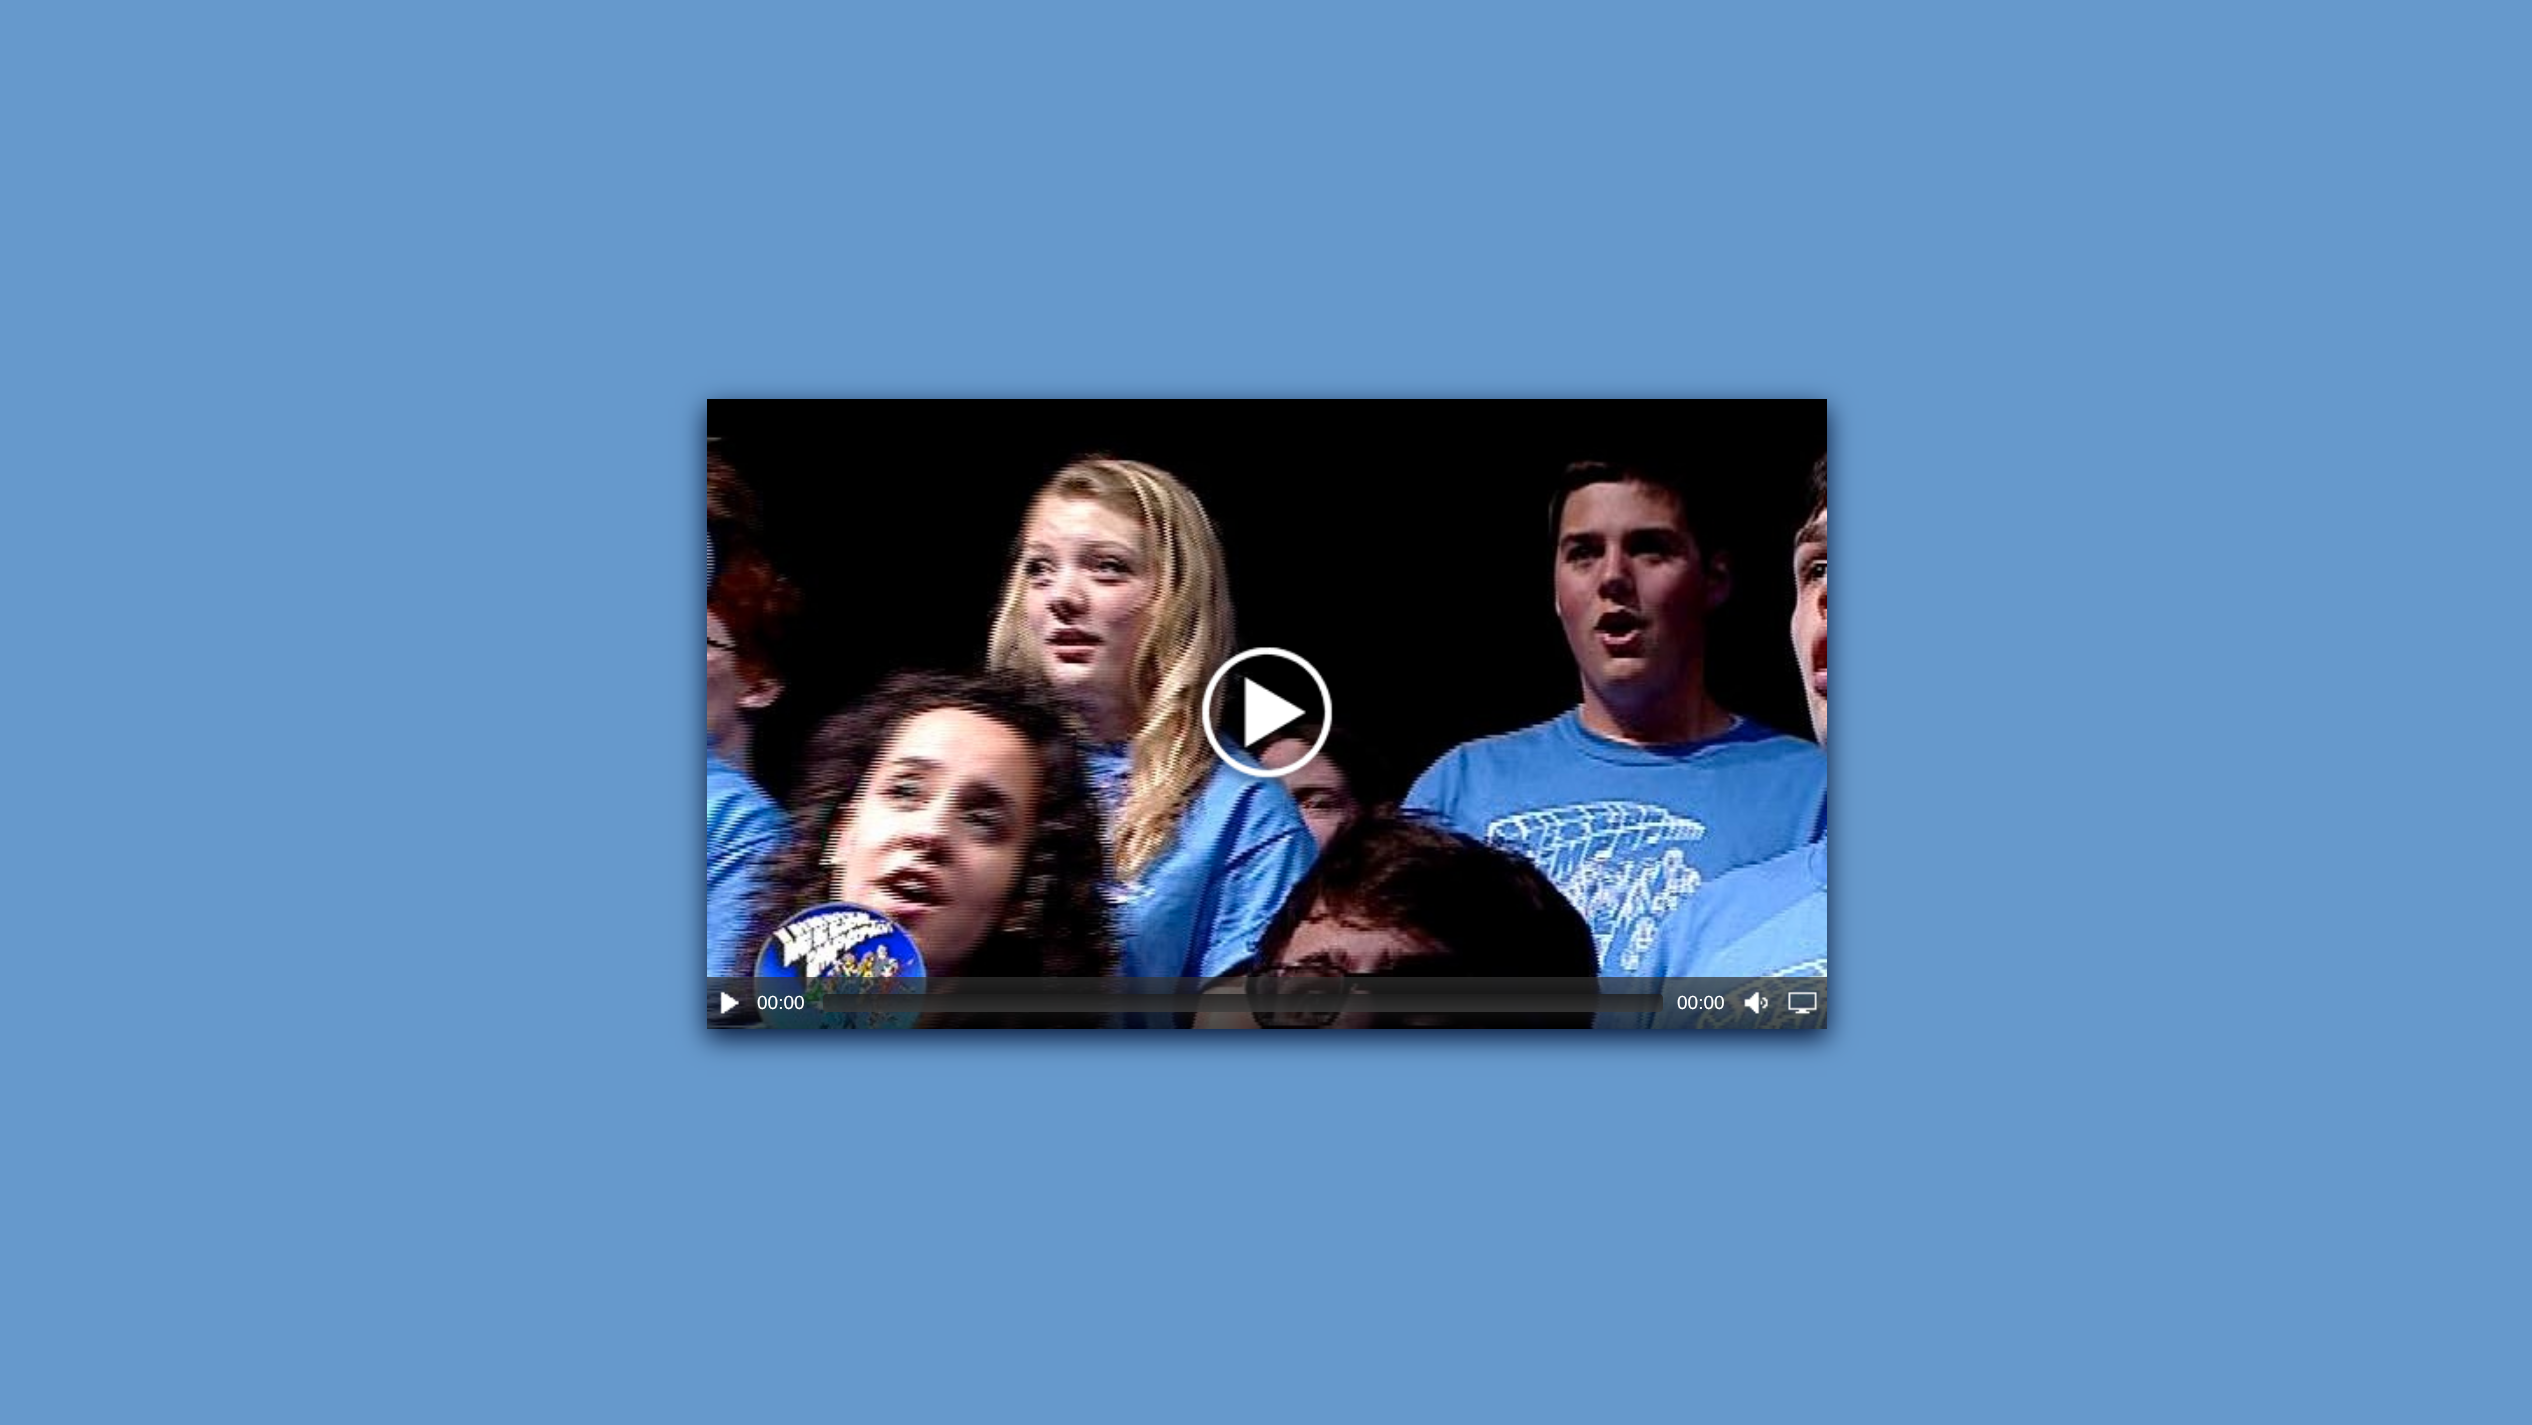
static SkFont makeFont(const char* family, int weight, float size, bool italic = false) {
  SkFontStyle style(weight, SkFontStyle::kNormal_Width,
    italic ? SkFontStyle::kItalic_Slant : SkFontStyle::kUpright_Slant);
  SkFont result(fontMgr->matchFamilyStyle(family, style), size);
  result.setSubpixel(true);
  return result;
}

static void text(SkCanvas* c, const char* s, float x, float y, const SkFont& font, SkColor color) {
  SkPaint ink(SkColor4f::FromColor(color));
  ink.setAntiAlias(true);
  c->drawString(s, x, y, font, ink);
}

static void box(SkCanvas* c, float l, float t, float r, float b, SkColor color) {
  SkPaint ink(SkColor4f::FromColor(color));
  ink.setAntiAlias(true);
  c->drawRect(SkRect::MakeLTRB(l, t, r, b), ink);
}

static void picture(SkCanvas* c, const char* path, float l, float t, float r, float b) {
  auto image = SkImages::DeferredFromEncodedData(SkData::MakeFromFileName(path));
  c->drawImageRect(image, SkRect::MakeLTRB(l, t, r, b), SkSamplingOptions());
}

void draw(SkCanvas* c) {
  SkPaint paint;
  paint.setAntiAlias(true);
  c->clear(0xff6699cc);
  paint.setColor(0xff001133);
  paint.setMaskFilter(SkMaskFilter::MakeBlur(kNormal_SkBlurStyle, 13));
  c->drawRect(SkRect::MakeLTRB(707, 408, 1827, 1038), paint);
  paint.setMaskFilter(nullptr);
  box(c, 707, 399, 1827, 435, 0xff000000);
  picture(c, "img_01.png", 707, 435, 1827, 1029);
  picture(c, "img_02.png", 1190, 646, 1336, 790);
  picture(c, "img_03.png", 720, 991, 739, 1014);
  SkFont face1 = makeFont("Liberation Sans", 400, 19);
  text(c, "00:00", 757, 1009, face1, 0xffffffff);
  text(c, "00:00", 1677, 1009, face1, 0xffffffff);
  picture(c, "img_04.png", 1744, 991, 1768, 1014);
  picture(c, "img_05.png", 1788, 991, 1817, 1014);
}
